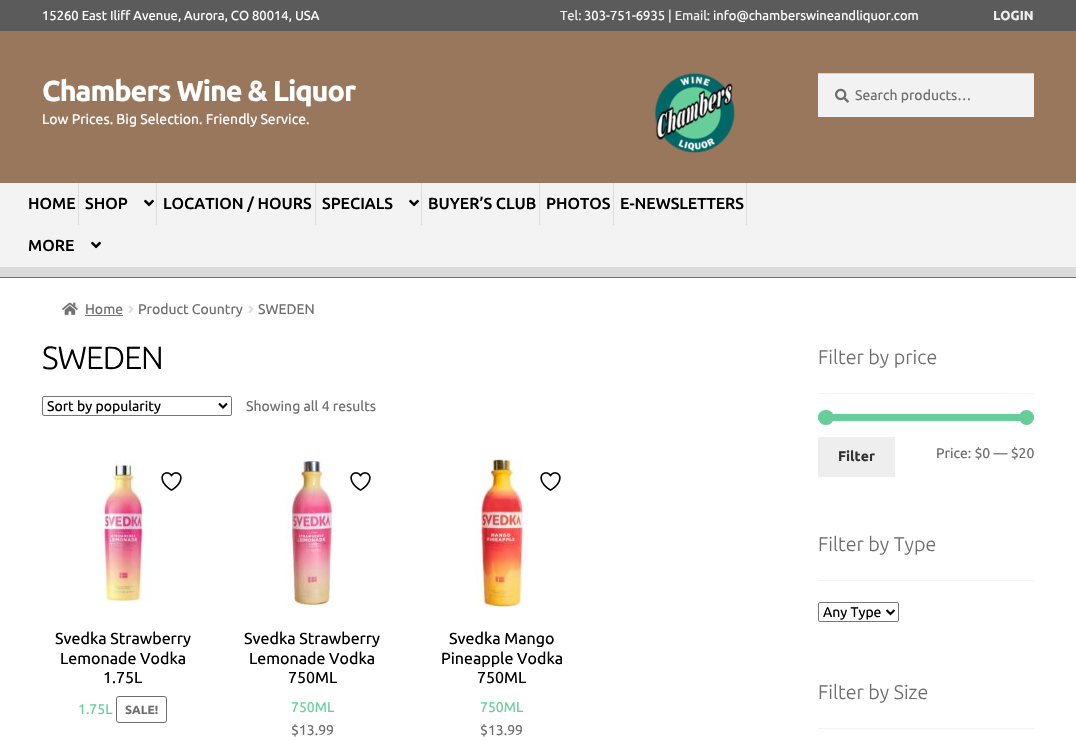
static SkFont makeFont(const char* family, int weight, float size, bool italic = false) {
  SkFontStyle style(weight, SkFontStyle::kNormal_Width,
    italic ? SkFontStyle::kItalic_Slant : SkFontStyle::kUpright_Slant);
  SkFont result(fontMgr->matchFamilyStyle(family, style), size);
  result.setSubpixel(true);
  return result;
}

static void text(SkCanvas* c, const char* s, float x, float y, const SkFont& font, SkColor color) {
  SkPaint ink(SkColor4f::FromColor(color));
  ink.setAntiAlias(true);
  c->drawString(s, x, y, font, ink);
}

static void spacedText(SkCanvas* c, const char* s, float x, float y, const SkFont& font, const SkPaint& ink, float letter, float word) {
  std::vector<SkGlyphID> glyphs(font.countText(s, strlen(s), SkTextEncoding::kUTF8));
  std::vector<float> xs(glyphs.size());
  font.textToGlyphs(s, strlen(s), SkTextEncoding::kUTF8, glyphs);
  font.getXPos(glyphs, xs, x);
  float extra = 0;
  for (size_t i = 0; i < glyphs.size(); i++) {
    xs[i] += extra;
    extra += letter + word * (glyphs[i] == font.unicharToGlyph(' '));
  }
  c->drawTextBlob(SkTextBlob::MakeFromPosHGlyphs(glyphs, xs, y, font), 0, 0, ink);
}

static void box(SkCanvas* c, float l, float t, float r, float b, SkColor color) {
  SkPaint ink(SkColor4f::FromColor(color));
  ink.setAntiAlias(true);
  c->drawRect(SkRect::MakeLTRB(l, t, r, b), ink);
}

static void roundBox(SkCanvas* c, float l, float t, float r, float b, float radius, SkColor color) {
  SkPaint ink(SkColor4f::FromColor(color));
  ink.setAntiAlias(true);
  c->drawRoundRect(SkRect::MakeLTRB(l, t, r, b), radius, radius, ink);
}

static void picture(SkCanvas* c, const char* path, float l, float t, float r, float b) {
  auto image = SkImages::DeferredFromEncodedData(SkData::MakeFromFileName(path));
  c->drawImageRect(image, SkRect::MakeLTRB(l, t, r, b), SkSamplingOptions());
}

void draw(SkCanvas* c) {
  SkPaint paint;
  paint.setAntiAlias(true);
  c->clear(0xffffffff);
  box(c, 0, 0, 1076, 31, 0xff5b5b5b);
  SkFont face1 = makeFont("Ubuntu", 400, 13);
  text(c, "15260 East Iliff Avenue, Aurora, CO 80014, USA", 42, 20, face1, 0xffffffff);
  text(c, "Tel:", 560, 20, face1, 0xffefefef);
  text(c, "303-751-6935", 584, 20, face1, 0xffffffff);
  text(c, "| Email:", 668, 20, face1, 0xffefefef);
  text(c, "info@chamberswineandliquor.com", 713, 20, face1, 0xffffffff);
  SkFont face2 = makeFont("Ubuntu", 700, 13);
  text(c, "LOGIN", 993, 20, face2, 0xffefefef);
  box(c, 0, 31, 1076, 183, 0xff99775c);
  box(c, 0, 277, 1076, 278, 0xff8a684d);
  SkFont face3 = makeFont("Ubuntu", 700, 28.75f);
  paint.setColor(0xffffffff);
  spacedText(c, "Chambers Wine & Liquor", 42, 101, face3, paint, -1, 0);
  picture(c, "img_01.png", 655, 73, 735, 153);
  SkFont face4 = makeFont("Ubuntu", 400, 14);
  text(c, "Low Prices. Big Selection. Friendly Service.", 42, 124, face4, 0xffffffff);
  box(c, 818, 74, 1034, 117, 0xfff2f2f2);
  picture(c, "img_02.png", 835, 88, 849, 103);
  box(c, 818, 73, 1034, 74, 0xffd4d4d4);
  text(c, "Search products…", 855, 100, face4, 0xff6d6d6d);
  box(c, 0, 183, 1076, 267, 0xfff3f3f3);
  box(c, 0, 267, 1076, 277, 0xffdbdbdb);
  box(c, 78, 183, 79, 225, 0xffdbdbdb);
  SkFont face5 = makeFont("Ubuntu", 500, 16);
  text(c, "HOME", 28, 209, face5, 0xff000000);
  box(c, 156, 183, 157, 225, 0xffdbdbdb);
  text(c, "SHOP", 85, 209, face5, 0xff000000);
  picture(c, "img_03.png", 144, 199, 154, 207);
  box(c, 315, 183, 316, 225, 0xffdbdbdb);
  text(c, "LOCATION / HOURS", 163, 209, face5, 0xff000000);
  box(c, 421, 183, 422, 225, 0xffdbdbdb);
  text(c, "SPECIALS", 322, 209, face5, 0xff000000);
  picture(c, "img_03.png", 409, 199, 419, 207);
  box(c, 539, 183, 540, 225, 0xffdbdbdb);
  text(c, "BUYER’S CLUB", 428, 209, face5, 0xff000000);
  box(c, 613, 183, 614, 225, 0xffdbdbdb);
  text(c, "PHOTOS", 546, 209, face5, 0xff000000);
  box(c, 746, 183, 747, 225, 0xffdbdbdb);
  text(c, "E-NEWSLETTERS", 620, 209, face5, 0xff000000);
  text(c, "MORE", 28, 251, face5, 0xff000000);
  picture(c, "img_03.png", 91, 241, 101, 249);
  picture(c, "img_04.png", 62, 302, 78, 315);
  text(c, "Home", 85, 314, face4, 0xff6d6d6d);
  box(c, 85, 315, 123, 316, 0xff727272);
  picture(c, "img_05.png", 128, 305, 134, 313);
  text(c, "Product Country", 138, 314, face4, 0xff6d6d6d);
  picture(c, "img_05.png", 248, 305, 254, 313);
  text(c, "SWEDEN", 258, 314, face4, 0xff6d6d6d);
  SkFont face6 = makeFont("Ubuntu", 300, 32);
  paint.setColor(0xff000000);
  spacedText(c, "SWEDEN", 42, 369, face6, paint, -1, 0);
  paint.setStyle(SkPaint::kStroke_Style);
  paint.setStrokeWidth(1);
  paint.setColor(0xff767676);
  c->drawRoundRect(SkRect::MakeLTRB(42.5f, 396.5f, 231.5f, 415.5f), 1.5f, 1.5f, paint);
  paint.setStrokeWidth(2);
  paint.setColor(0xff000000);
  c->drawPath(SkPathBuilder().moveTo(219, 403.5f).lineTo(223, 407.5f).lineTo(227, 403.5f).detach(), paint);
  text(c, "Sort by popularity", 47, 411, face4, 0xff000000);
  text(c, "Showing all 4 results", 246, 411, face4, 0xff6d6d6d);
  picture(c, "img_06.png", 161, 472, 182, 491);
  picture(c, "img_07.png", 99, 459, 153, 602);
  SkFont face7 = makeFont("Ubuntu", 400, 16);
  text(c, "Svedka Strawberry", 55, 644, face7, 0xff000000);
  text(c, "Lemonade Vodka", 60, 664, face7, 0xff000000);
  text(c, "1.75L", 103, 683, face7, 0xff000000);
  text(c, "1.75L", 78, 714, face4, 0xff67ce9a);
  paint.setStrokeWidth(1);
  paint.setColor(0xff6d6d6d);
  c->drawRoundRect(SkRect::MakeLTRB(116.5f, 696.5f, 166.5f, 722.5f), 2.5f, 2.5f, paint);
  SkFont face8 = makeFont("Ubuntu", 700, 12);
  text(c, "SALE!", 125, 714, face8, 0xff6d6d6d);
  picture(c, "img_06.png", 350, 472, 371, 491);
  picture(c, "img_08.png", 285, 459, 334, 607);
  text(c, "Svedka Strawberry", 244, 644, face7, 0xff000000);
  text(c, "Lemonade Vodka", 249, 664, face7, 0xff000000);
  text(c, "750ML", 288, 683, face7, 0xff000000);
  text(c, "750ML", 291, 712, face4, 0xff67ce9a);
  text(c, "$13.99", 291, 735, face4, 0xff6d6d6d);
  picture(c, "img_06.png", 540, 472, 561, 491);
  picture(c, "img_09.png", 475, 459, 524, 607);
  text(c, "Svedka Mango", 449, 644, face7, 0xff000000);
  text(c, "Pineapple Vodka", 441, 664, face7, 0xff000000);
  text(c, "750ML", 477, 683, face7, 0xff000000);
  text(c, "750ML", 480, 712, face4, 0xff67ce9a);
  text(c, "$13.99", 480, 735, face4, 0xff6d6d6d);
  box(c, 818, 393, 1034, 394, 0xfff2f2f2);
  SkFont face9 = makeFont("Ubuntu", 300, 19.75f);
  text(c, "Filter by price", 818, 364, face9, 0xff6d6d6d);
  roundBox(c, 818, 414, 1034, 421, 3.5f, 0xff67ce9a);
  roundBox(c, 818, 410, 834, 425, 7.5f, 0xff67ce9a);
  paint.setStyle(SkPaint::kFill_Style);
  paint.setColor(0xff67ce9a);
  c->drawCircle(1026.5f, 417.5f, 7.5f, paint);
  box(c, 818, 437, 895, 477, 0xffeeeeee);
  SkFont face10 = makeFont("Ubuntu", 700, 14);
  text(c, "Filter", 838, 461, face10, 0xff333333);
  text(c, "Price: $0 — $20", 936, 458, face4, 0xff6d6d6d);
  box(c, 818, 580, 1034, 581, 0xfff2f2f2);
  text(c, "Filter by Type", 818, 551, face9, 0xff6d6d6d);
  paint.setStyle(SkPaint::kStroke_Style);
  paint.setColor(0xff767676);
  c->drawRoundRect(SkRect::MakeLTRB(818.5f, 602.5f, 898.5f, 621.5f), 1.5f, 1.5f, paint);
  paint.setStrokeWidth(2);
  paint.setColor(0xff000000);
  c->drawPath(SkPathBuilder().moveTo(886.5f, 610).lineTo(890.5f, 614).lineTo(894.5f, 610).detach(), paint);
  text(c, "Any Type", 823, 617, face4, 0xff000000);
  box(c, 818, 728, 1034, 729, 0xfff2f2f2);
  text(c, "Filter by Size", 818, 699, face9, 0xff6d6d6d);
}
